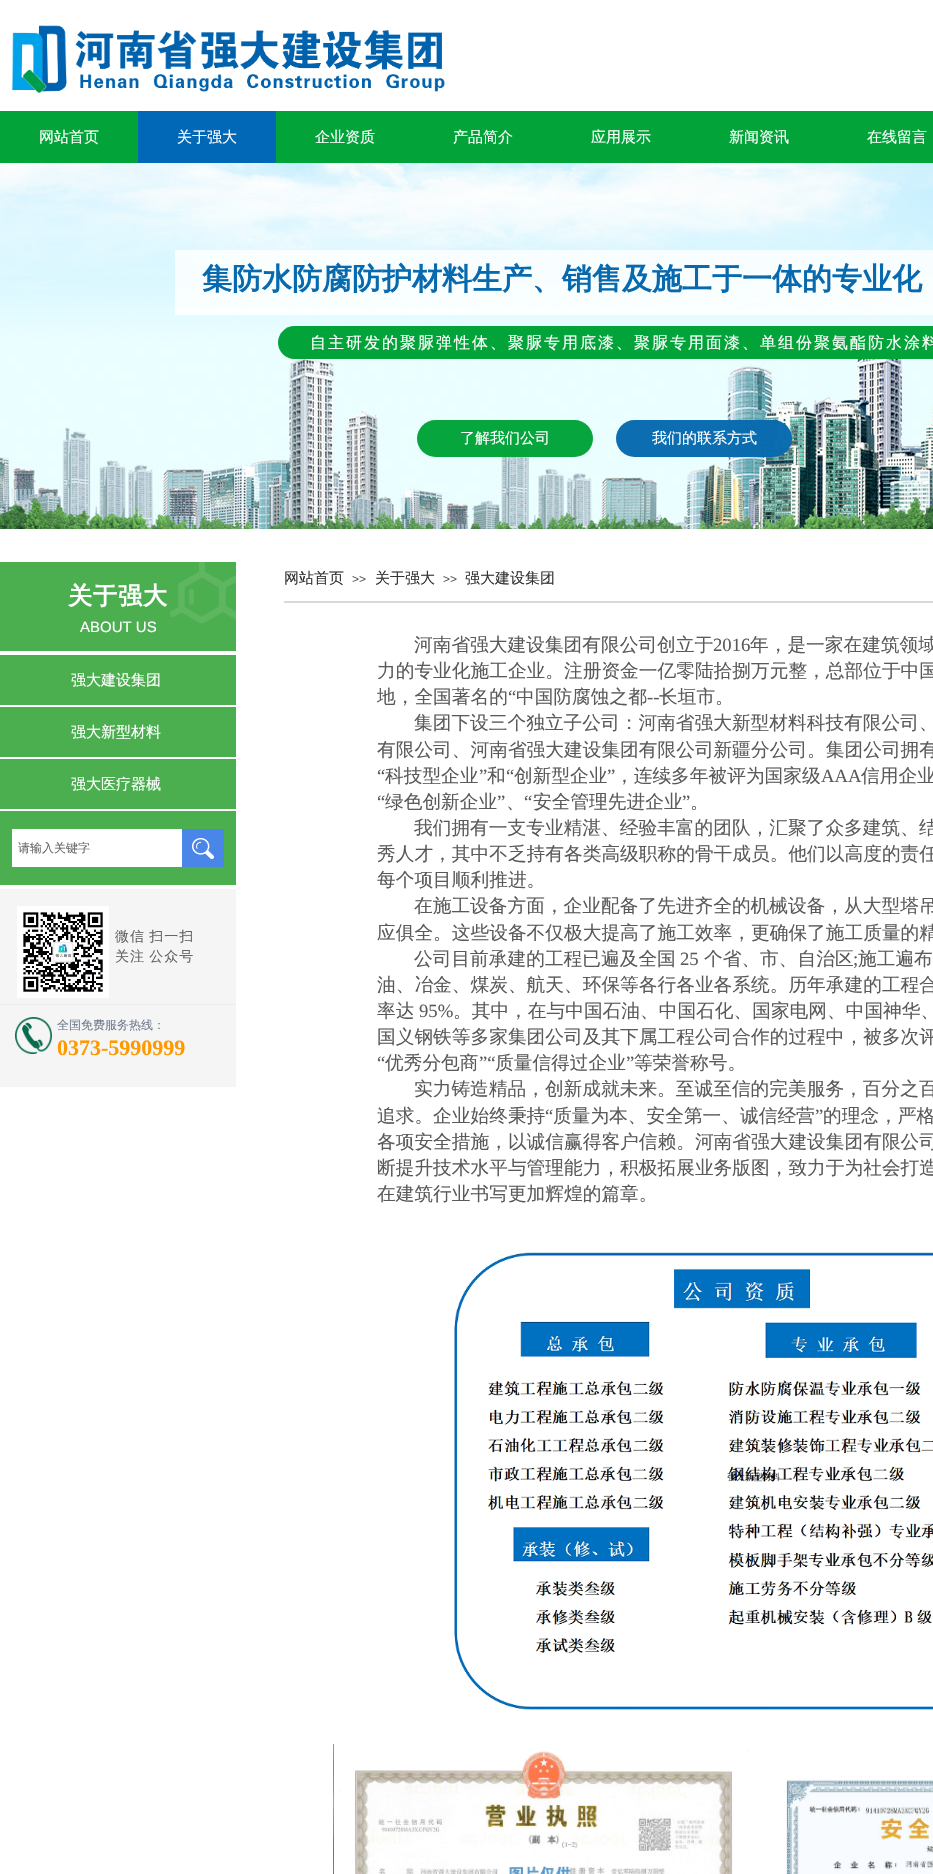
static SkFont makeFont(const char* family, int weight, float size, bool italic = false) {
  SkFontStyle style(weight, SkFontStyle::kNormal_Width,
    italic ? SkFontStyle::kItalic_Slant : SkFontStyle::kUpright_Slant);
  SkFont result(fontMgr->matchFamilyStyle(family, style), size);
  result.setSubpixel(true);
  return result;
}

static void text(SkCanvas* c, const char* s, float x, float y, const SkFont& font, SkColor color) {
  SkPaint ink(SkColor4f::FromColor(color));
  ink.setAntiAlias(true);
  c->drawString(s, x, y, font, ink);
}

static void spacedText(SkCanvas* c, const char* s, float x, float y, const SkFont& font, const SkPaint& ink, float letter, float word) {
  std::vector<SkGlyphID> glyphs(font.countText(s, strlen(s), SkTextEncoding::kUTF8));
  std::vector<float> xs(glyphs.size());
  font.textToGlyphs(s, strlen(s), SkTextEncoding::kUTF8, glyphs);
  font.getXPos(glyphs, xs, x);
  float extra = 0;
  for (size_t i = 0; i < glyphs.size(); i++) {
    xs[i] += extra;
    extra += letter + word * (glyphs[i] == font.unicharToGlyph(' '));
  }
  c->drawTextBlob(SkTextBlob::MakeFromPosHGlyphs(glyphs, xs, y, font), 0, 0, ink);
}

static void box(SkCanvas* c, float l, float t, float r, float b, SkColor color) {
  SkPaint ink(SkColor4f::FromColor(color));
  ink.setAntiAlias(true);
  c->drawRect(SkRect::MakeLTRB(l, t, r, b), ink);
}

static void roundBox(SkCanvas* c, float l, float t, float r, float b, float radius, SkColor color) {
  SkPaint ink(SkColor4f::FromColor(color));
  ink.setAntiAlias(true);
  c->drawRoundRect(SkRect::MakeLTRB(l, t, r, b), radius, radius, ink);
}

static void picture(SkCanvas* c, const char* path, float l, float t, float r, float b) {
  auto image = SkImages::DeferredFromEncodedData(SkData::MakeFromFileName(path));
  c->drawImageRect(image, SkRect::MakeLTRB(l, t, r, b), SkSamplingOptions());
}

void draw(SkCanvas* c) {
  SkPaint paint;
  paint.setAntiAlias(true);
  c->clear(0xffffffff);
  picture(c, "img_01.png", 11, 25, 445, 93);
  box(c, 0, 111, 933, 163, 0xff02a339);
  SkFont face1 = makeFont("WenQuanYi Zen Hei", 500, 15);
  text(c, "网站首页", 39, 142, face1, 0xffffffff);
  box(c, 138, 111, 276, 163, 0xff0168b7);
  text(c, "关于强大", 177, 142, face1, 0xffffffff);
  text(c, "企业资质", 315, 142, face1, 0xffffffff);
  text(c, "产品简介", 453, 142, face1, 0xffffffff);
  text(c, "应用展示", 591, 142, face1, 0xffffffff);
  text(c, "新闻资讯", 729, 142, face1, 0xffffffff);
  text(c, "在线留言", 867, 142, face1, 0xffffffff);
  picture(c, "img_02.png", 0, 163, 933, 529);
  box(c, 175, 250, 933, 315, 0xccffffff);
  SkFont face2 = makeFont("WenQuanYi Zen Hei", 700, 30);
  text(c, "集防水防腐防护材料生产、销售及施工于一体的专业化", 202, 289, face2, 0xff076aae);
  paint.setColor(0xff02a339);
  c->drawPath(SkPathBuilder().moveTo(294.5f, 326).lineTo(933, 326).lineTo(933, 359).lineTo(294.5f, 359).cubicTo(285.5f, 359, 278, 351.5f, 278, 342.5f).cubicTo(278, 333.5f, 285.5f, 326, 294.5f, 326).close().detach(), paint);
  SkFont face3 = makeFont("WenQuanYi Zen Hei", 500, 16);
  paint.setColor(0xffffffff);
  spacedText(c, "自主研发的聚脲弹性体、聚脲专用底漆、聚脲专用面漆、单组份聚氨酯防水涂料", 310, 348, face3, paint, 2, 0);
  roundBox(c, 417, 420, 593, 457, 18.5f, 0xfa02a339);
  text(c, "了解我们公司", 460, 443, face1, 0xffffffff);
  roundBox(c, 616, 420, 792, 457, 18.5f, 0xfa076aae);
  text(c, "我们的联系方式", 652, 443, face1, 0xffffffff);
  box(c, 284, 601, 933, 603, 0xffd9d9d9);
  text(c, "网站首页", 284, 583, face1, 0xff333333);
  SkFont face4 = makeFont("Liberation Sans", 400, 12);
  text(c, ">>", 352, 583, face4, 0xff5a5a5a);
  text(c, "关于强大", 375, 583, face1, 0xff333333);
  text(c, ">>", 443, 583, face4, 0xff5a5a5a);
  text(c, "强大建设集团", 465, 583, face1, 0xff333333);
  box(c, 0, 562, 236, 651, 0xff4bae4f);
  SkFont face5 = makeFont("WenQuanYi Zen Hei", 700, 24);
  spacedText(c, "关于强大", 68, 604, face5, paint, 1, 0);
  SkFont face6 = makeFont("Liberation Sans", 400, 15);
  text(c, "ABOUT US", 80, 632, face6, 0xffffffff);
  picture(c, "img_03.png", 170, 562, 236, 624);
  box(c, 0, 655, 236, 705, 0xff4bae4f);
  text(c, "强大建设集团", 71, 685, face1, 0xffffffff);
  box(c, 0, 707, 236, 757, 0xff4bae4f);
  text(c, "强大新型材料", 71, 737, face1, 0xffffffff);
  box(c, 0, 759, 236, 809, 0xff4bae4f);
  text(c, "强大医疗器械", 71, 789, face1, 0xffffffff);
  SkFont face7 = makeFont("WenQuanYi Zen Hei", 500, 18.7f);
  text(c, "河南省强大建设集团有限公司创立于", 414, 651, face7, 0xff5a5a5a);
  SkFont face8 = makeFont("Liberation Serif", 400, 18.7f);
  text(c, "2016", 713, 651, face8, 0xff5a5a5a);
  text(c, "年，是一家在建筑领域", 750, 651, face7, 0xff5a5a5a);
  text(c, "力的专业化施工企业。注册资金一亿零陆拾捌万元整，总部位于中国", 377, 677, face7, 0xff5a5a5a);
  text(c, "地，全国著名的", 377, 703, face7, 0xff5a5a5a);
  text(c, "“", 508, 703, face8, 0xff5a5a5a);
  text(c, "中国防腐蚀之都", 516, 703, face7, 0xff5a5a5a);
  text(c, "长垣市。", 659, 703, face7, 0xff5a5a5a);
  text(c, "--", 647, 703, face8, 0xff5a5a5a);
  text(c, "集团下设三个独立子公司：河南省强大新型材料科技有限公司、", 414, 729, face7, 0xff5a5a5a);
  text(c, "有限公司、河南省强大建设集团有限公司新疆分公司。集团公司拥有", 377, 756, face7, 0xff5a5a5a);
  text(c, "“", 377, 782, face8, 0xff5a5a5a);
  text(c, "科技型企业", 385, 782, face7, 0xff5a5a5a);
  text(c, "”", 479, 782, face8, 0xff5a5a5a);
  text(c, "和", 487, 782, face7, 0xff5a5a5a);
  text(c, "“", 506, 782, face8, 0xff5a5a5a);
  text(c, "创新型企业", 514, 782, face7, 0xff5a5a5a);
  text(c, "”", 607, 782, face8, 0xff5a5a5a);
  text(c, "，连续多年被评为国家级", 615, 782, face7, 0xff5a5a5a);
  text(c, "AAA", 821, 782, face8, 0xff5a5a5a);
  text(c, "信用企业", 861, 782, face7, 0xff5a5a5a);
  text(c, "“", 377, 808, face8, 0xff5a5a5a);
  text(c, "绿色创新企业", 385, 808, face7, 0xff5a5a5a);
  text(c, "”", 497, 808, face8, 0xff5a5a5a);
  text(c, "“", 524, 808, face8, 0xff5a5a5a);
  text(c, "安全管理先进企业", 533, 808, face7, 0xff5a5a5a);
  text(c, "”", 682, 808, face8, 0xff5a5a5a);
  text(c, "、", 506, 808, face7, 0xff5a5a5a);
  text(c, "。", 690, 808, face7, 0xff5a5a5a);
  text(c, "我们拥有一支专业精湛、经验丰富的团队，汇聚了众多建筑、结", 414, 834, face7, 0xff5a5a5a);
  text(c, "秀人才，其中不乏持有各类高级职称的骨干成员。他们以高度的责任", 377, 860, face7, 0xff5a5a5a);
  text(c, "每个项目顺利推进。", 377, 886, face7, 0xff5a5a5a);
  text(c, "在施工设备方面，企业配备了先进齐全的机械设备，从大型塔吊", 414, 912, face7, 0xff5a5a5a);
  text(c, "应俱全。这些设备不仅极大提高了施工效率，更确保了施工质量的精", 377, 939, face7, 0xff5a5a5a);
  text(c, "公司目前承建的工程已遍及全国", 414, 965, face7, 0xff5a5a5a);
  text(c, "25", 680, 965, face8, 0xff5a5a5a);
  text(c, "个省、市、自治区", 704, 965, face7, 0xff5a5a5a);
  text(c, ";", 853, 965, face8, 0xff5a5a5a);
  text(c, "施工遍布", 858, 965, face7, 0xff5a5a5a);
  text(c, "油、冶金、煤炭、航天、环保等各行各业各系统。历年承建的工程合", 377, 991, face7, 0xff5a5a5a);
  text(c, "率达", 377, 1017, face7, 0xff5a5a5a);
  text(c, "95%", 419, 1017, face8, 0xff5a5a5a);
  text(c, "。其中，在与中国石油、中国石化、国家电网、中国神华、", 453, 1017, face7, 0xff5a5a5a);
  text(c, "国义钢铁等多家集团公司及其下属工程公司合作的过程中，被多次评", 377, 1043, face7, 0xff5a5a5a);
  text(c, "“", 377, 1069, face8, 0xff5a5a5a);
  text(c, "优秀分包商", 385, 1069, face7, 0xff5a5a5a);
  text(c, "”“", 479, 1069, face8, 0xff5a5a5a);
  text(c, "质量信得过企业", 495, 1069, face7, 0xff5a5a5a);
  text(c, "”", 626, 1069, face8, 0xff5a5a5a);
  text(c, "等荣誉称号。", 634, 1069, face7, 0xff5a5a5a);
  text(c, "实力铸造精品，创新成就未来。至诚至信的完美服务，百分之百", 414, 1095, face7, 0xff5a5a5a);
  text(c, "追求。企业始终秉持", 377, 1122, face7, 0xff5a5a5a);
  text(c, "“", 545, 1122, face8, 0xff5a5a5a);
  text(c, "质量为本、安全第一、诚信经营", 553, 1122, face7, 0xff5a5a5a);
  text(c, "”", 815, 1122, face8, 0xff5a5a5a);
  text(c, "的理念，严格", 823, 1122, face7, 0xff5a5a5a);
  text(c, "各项安全措施，以诚信赢得客户信赖。河南省强大建设集团有限公司", 377, 1148, face7, 0xff5a5a5a);
  text(c, "断提升技术水平与管理能力，积极拓展业务版图，致力于为社会打造", 377, 1174, face7, 0xff5a5a5a);
  text(c, "在建筑行业书写更加辉煌的篇章。", 377, 1200, face7, 0xff5a5a5a);
  box(c, 0, 811, 236, 885, 0xff4bae4f);
  box(c, 182, 829, 224, 867, 0xff4a86e8);
  box(c, 12, 829, 182, 867, 0xffffffff);
  SkFont face9 = makeFont("WenQuanYi Zen Hei", 500, 12);
  text(c, "请输入关键字", 18, 852, face9, 0xff666666);
  picture(c, "img_04.png", 192, 838, 214, 859);
  box(c, 0, 889, 236, 1087, 0xfff5f5f5);
  picture(c, "img_05.png", 17, 906, 109, 998);
  SkFont face10 = makeFont("WenQuanYi Zen Hei", 500, 14);
  paint.setColor(0xff666666);
  spacedText(c, "微信 扫一扫", 115, 941, face10, paint, 1, -1);
  spacedText(c, "关注 公众号", 115, 961, face10, paint, 1, -1);
  box(c, 0, 1004, 236, 1005, 0xffececec);
  picture(c, "img_06.png", 15, 1017, 52, 1054);
  text(c, "全国免费服务热线：", 57, 1029, face9, 0xff6e7c8b);
  SkFont face11 = makeFont("Liberation Serif", 700, 22);
  text(c, "0373-5990999", 57, 1055, face11, 0xffff9900);
  picture(c, "img_07.png", 454, 1252, 933, 1710);
  picture(c, "img_08.png", 333, 1744, 750, 1874);
  picture(c, "img_09.png", 786, 1779, 933, 1874);
}
